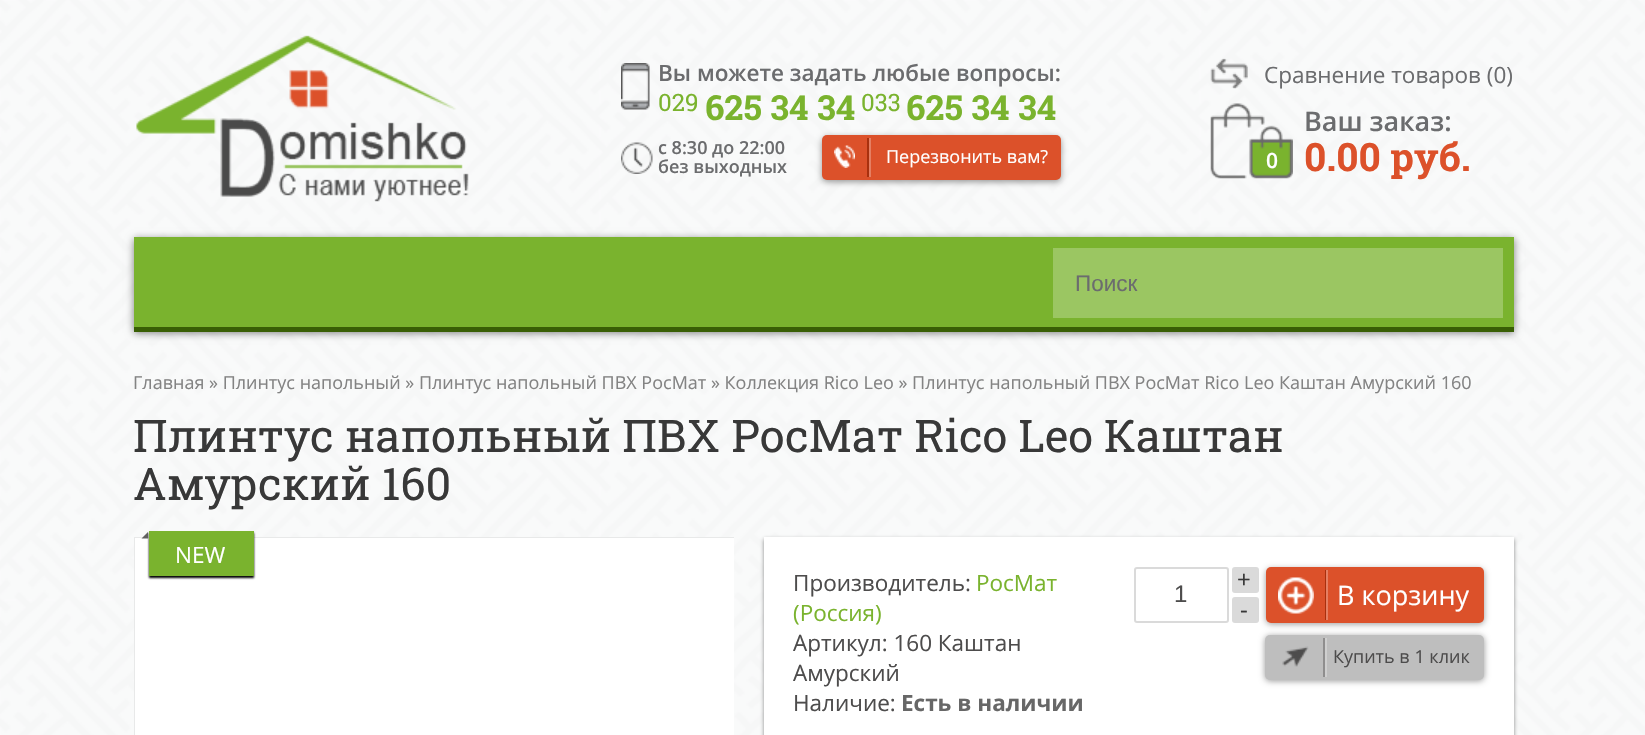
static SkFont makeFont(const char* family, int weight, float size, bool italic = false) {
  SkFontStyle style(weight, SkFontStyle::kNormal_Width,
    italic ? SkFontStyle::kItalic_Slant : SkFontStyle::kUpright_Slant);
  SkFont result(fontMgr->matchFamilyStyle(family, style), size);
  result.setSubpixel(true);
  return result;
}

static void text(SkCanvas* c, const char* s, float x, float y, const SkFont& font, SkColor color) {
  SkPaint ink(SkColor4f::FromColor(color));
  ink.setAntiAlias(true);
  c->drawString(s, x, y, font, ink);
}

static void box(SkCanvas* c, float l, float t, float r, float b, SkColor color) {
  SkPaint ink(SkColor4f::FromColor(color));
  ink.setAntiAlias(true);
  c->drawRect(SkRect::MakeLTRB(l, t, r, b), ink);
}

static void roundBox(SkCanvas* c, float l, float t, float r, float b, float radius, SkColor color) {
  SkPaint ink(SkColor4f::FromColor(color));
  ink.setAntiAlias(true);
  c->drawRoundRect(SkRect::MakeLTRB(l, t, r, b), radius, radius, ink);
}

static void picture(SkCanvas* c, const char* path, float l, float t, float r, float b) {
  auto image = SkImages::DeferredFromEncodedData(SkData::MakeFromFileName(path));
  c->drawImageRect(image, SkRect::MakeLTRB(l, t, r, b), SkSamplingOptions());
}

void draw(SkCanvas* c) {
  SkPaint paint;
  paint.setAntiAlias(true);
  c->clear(0xffffffff);
  picture(c, "img_01.png", 0, 0, 1645, 735);
  picture(c, "img_02.png", 136, 35, 469, 202);
  picture(c, "img_03.png", 621, 63, 650, 110);
  SkFont face1 = makeFont("Open Sans", 600, 22.5f);
  text(c, "Вы можете задать любые вопросы:", 658, 81, face1, 0xff6b6c6e);
  SkFont face2 = makeFont("Roboto Slab", 400, 24);
  text(c, "029", 658, 111, face2, 0xff7ab32e);
  SkFont face3 = makeFont("Roboto Slab", 700, 34.5f);
  text(c, "625 34 34", 705, 120, face3, 0xff7ab32e);
  text(c, "033", 861, 111, face2, 0xff7ab32e);
  text(c, "625 34 34", 906, 120, face3, 0xff7ab32e);
  paint.setColor(0x66000000);
  paint.setMaskFilter(SkMaskFilter::MakeBlur(kNormal_SkBlurStyle, 3));
  c->drawRoundRect(SkRect::MakeLTRB(822, 137, 1061, 182), 5, 5, paint);
  paint.setMaskFilter(nullptr);
  roundBox(c, 822, 135, 1061, 180, 5, 0xffdc512a);
  picture(c, "img_04.png", 834, 145, 855, 168);
  box(c, 867, 138, 869, 177, 0xffa8300e);
  box(c, 869, 138, 871, 177, 0xffe57f63);
  SkFont face4 = makeFont("Open Sans", 400, 18);
  text(c, "Перезвонить вам?", 886, 163, face4, 0xffffffff);
  picture(c, "img_05.png", 621, 142, 653, 174);
  SkFont face5 = makeFont("Open Sans", 600, 18);
  text(c, "c 8:30 до 22:00", 658, 154, face5, 0xff6b6c6e);
  text(c, "без выходных", 658, 173, face5, 0xff6b6c6e);
  picture(c, "img_06.png", 1210, 58, 1248, 89);
  SkFont face6 = makeFont("Open Sans", 400, 22.5f);
  text(c, "Сравнение товаров (0)", 1264, 83, face6, 0xff6b6c6e);
  picture(c, "img_07.png", 1210, 103, 1293, 179);
  SkFont face7 = makeFont("Open Sans", 600, 27);
  text(c, "Ваш заказ:", 1304, 131, face7, 0xff6b6c6e);
  SkFont face8 = makeFont("Open Sans", 600, 21);
  text(c, "0", 1266, 168, face8, 0xffffffff);
  SkFont face9 = makeFont("Roboto Slab", 700, 39);
  text(c, "0.00 руб.", 1304, 171, face9, 0xffdc512a);
  paint.setColor(0x80000000);
  paint.setMaskFilter(SkMaskFilter::MakeBlur(kNormal_SkBlurStyle, 4));
  c->drawRect(SkRect::MakeLTRB(134, 239, 1514, 333), paint);
  paint.setMaskFilter(nullptr);
  box(c, 134, 237, 1514, 327, 0xff7ab32e);
  box(c, 134, 327, 1514, 332, 0xff395f05);
  box(c, 1053, 248, 1503, 318, 0xff9bc662);
  SkFont face10 = makeFont("Liberation Sans", 400, 22.5f);
  text(c, "Поиск", 1075, 291, face10, 0xff6b6c6e);
  text(c, "Главная » Плинтус напольный » Плинтус напольный ПВХ РосМат » Коллекция Rico Leo » Плинтус напольный ПВХ РосМат Rico Leo Каштан Амурский 160", 133, 389, face4, 0xff838383);
  SkFont face11 = makeFont("Roboto Slab", 400, 45);
  text(c, "Плинтус напольный ПВХ РосМат Rico Leo Каштан", 133, 452, face11, 0xff383838);
  text(c, "Амурский 160", 133, 500, face11, 0xff383838);
  box(c, 134, 537, 734, 538, 0xffe8e9e9);
  box(c, 134, 537, 136, 735, 0xffe8e9e9);
  box(c, 135, 538, 734, 735, 0xffffffff);
  paint.setColor(0xff000000);
  paint.setMaskFilter(SkMaskFilter::MakeBlur(kNormal_SkBlurStyle, 1));
  c->drawRect(SkRect::MakeLTRB(149, 533, 254, 578), paint);
  paint.setMaskFilter(nullptr);
  box(c, 149, 531, 254, 576, 0xff7ab32e);
  paint.setColor(0xff616161);
  c->drawPath(SkPathBuilder().moveTo(141.5f, 538.5f).lineTo(148, 532).lineTo(148, 538.5f).close().detach(), paint);
  text(c, "NEW", 175, 563, face6, 0xffffffff);
  paint.setColor(0x8c2b2b2b);
  paint.setMaskFilter(SkMaskFilter::MakeBlur(kNormal_SkBlurStyle, 2));
  c->drawRect(SkRect::MakeLTRB(764, 539, 1514, 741), paint);
  paint.setMaskFilter(nullptr);
  box(c, 764, 537, 1514, 735, 0xffffffff);
  text(c, "Производитель:", 793, 591, face6, 0xff4d4c4c);
  text(c, "РосМат", 976, 591, face6, 0xff7ab32e);
  text(c, "(Россия)", 793, 621, face6, 0xff7ab32e);
  text(c, "Артикул: 160 Каштан", 793, 651, face6, 0xff4d4c4c);
  text(c, "Амурский", 793, 681, face6, 0xff4d4c4c);
  text(c, "Наличие:", 793, 711, face6, 0xff4d4c4c);
  SkFont face12 = makeFont("Open Sans", 700, 22.5f);
  text(c, "Есть в наличии", 901, 711, face12, 0xff676767);
  roundBox(c, 1232, 567, 1259, 593, 3, 0xffdadada);
  SkFont face13 = makeFont("Open Sans", 400, 24);
  text(c, "+", 1237, 588, face13, 0xff383838);
  paint.setStyle(SkPaint::kStroke_Style);
  paint.setStrokeWidth(2);
  paint.setColor(0xffdadada);
  c->drawRoundRect(SkRect::MakeLTRB(1135, 568, 1228, 622), 2, 2, paint);
  SkFont face14 = makeFont("Liberation Sans", 400, 24);
  text(c, "1", 1174, 602, face14, 0xff4d4c4c);
  roundBox(c, 1232, 597, 1259, 623, 3, 0xffdadada);
  text(c, "-", 1240, 618, face13, 0xff383838);
  paint.setStyle(SkPaint::kFill_Style);
  paint.setColor(0x66000000);
  paint.setMaskFilter(SkMaskFilter::MakeBlur(kNormal_SkBlurStyle, 3));
  c->drawRoundRect(SkRect::MakeLTRB(1266, 569, 1484, 624), 5, 5, paint);
  paint.setMaskFilter(nullptr);
  roundBox(c, 1266, 567, 1484, 623, 5, 0xffdc512a);
  picture(c, "img_08.png", 1278, 577, 1314, 614);
  box(c, 1325, 570, 1326, 620, 0xffa8300e);
  box(c, 1326, 570, 1328, 620, 0xffe57f63);
  SkFont face15 = makeFont("Open Sans", 400, 27);
  text(c, "В корзину", 1337, 605, face15, 0xffffffff);
  paint.setMaskFilter(SkMaskFilter::MakeBlur(kNormal_SkBlurStyle, 3));
  c->drawRoundRect(SkRect::MakeLTRB(1265, 636, 1484, 681), 5, 5, paint);
  paint.setMaskFilter(nullptr);
  roundBox(c, 1265, 635, 1484, 680, 5, 0xffbebebe);
  picture(c, "img_09.png", 1282, 646, 1309, 667);
  box(c, 1323, 638, 1325, 677, 0xff8f8e8e);
  box(c, 1325, 638, 1327, 677, 0xffcfcfcf);
  text(c, "Купить в 1 клик", 1333, 663, face4, 0xff4d4c4c);
}
